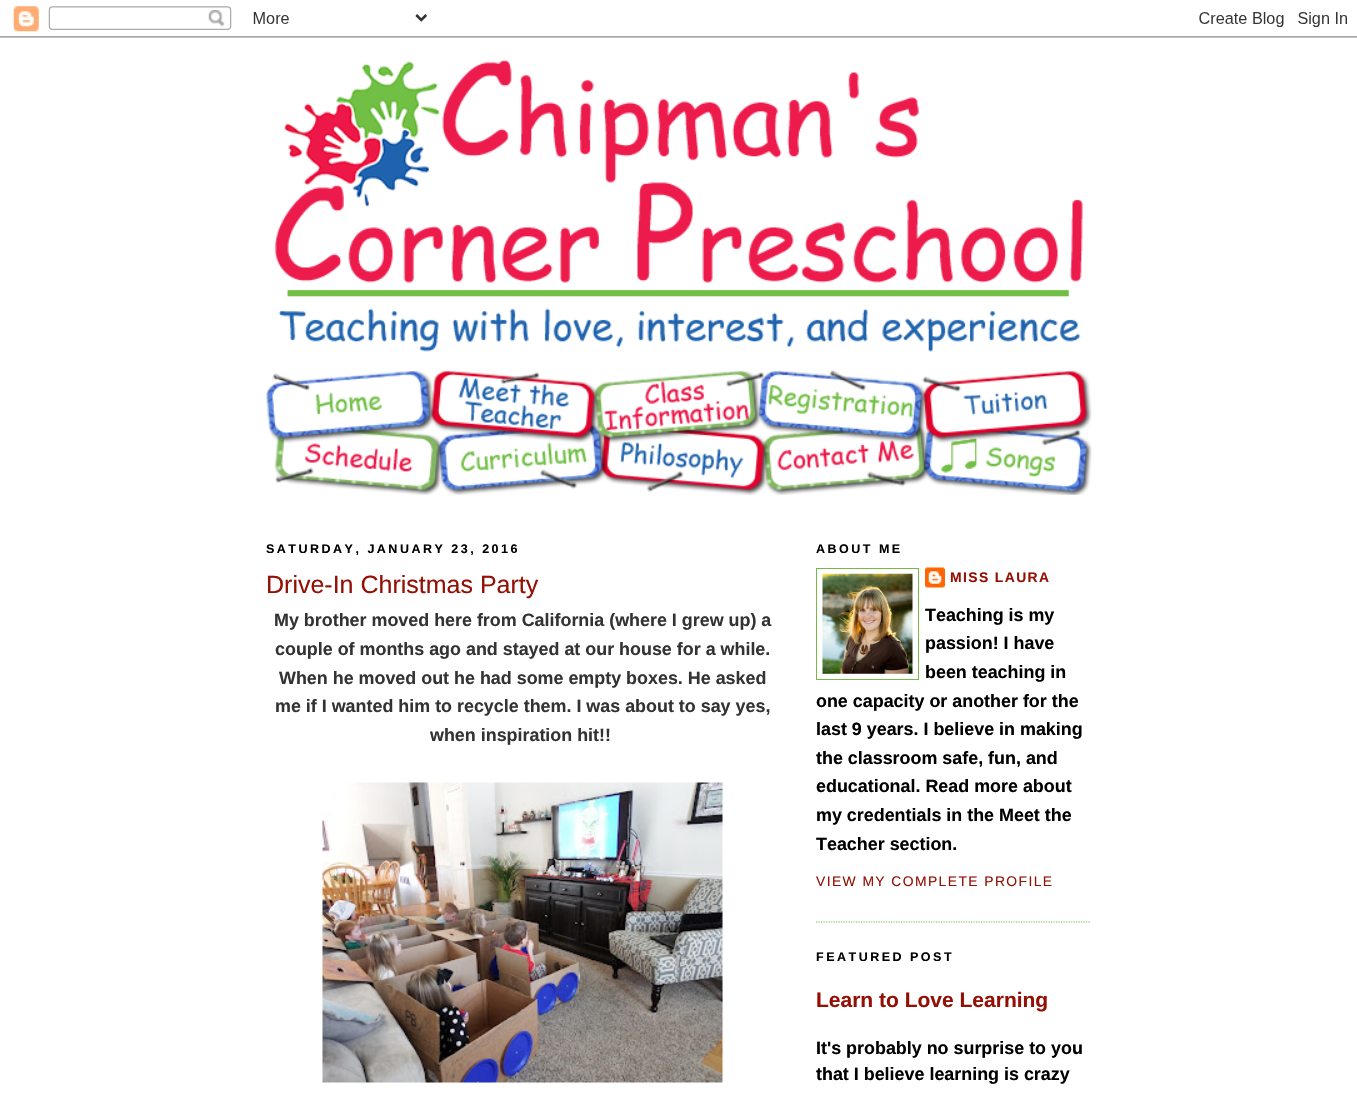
static SkFont makeFont(const char* family, int weight, float size, bool italic = false) {
  SkFontStyle style(weight, SkFontStyle::kNormal_Width,
    italic ? SkFontStyle::kItalic_Slant : SkFontStyle::kUpright_Slant);
  SkFont result(fontMgr->matchFamilyStyle(family, style), size);
  result.setSubpixel(true);
  return result;
}

static void text(SkCanvas* c, const char* s, float x, float y, const SkFont& font, SkColor color) {
  SkPaint ink(SkColor4f::FromColor(color));
  ink.setAntiAlias(true);
  c->drawString(s, x, y, font, ink);
}

static void spacedText(SkCanvas* c, const char* s, float x, float y, const SkFont& font, const SkPaint& ink, float letter, float word) {
  std::vector<SkGlyphID> glyphs(font.countText(s, strlen(s), SkTextEncoding::kUTF8));
  std::vector<float> xs(glyphs.size());
  font.textToGlyphs(s, strlen(s), SkTextEncoding::kUTF8, glyphs);
  font.getXPos(glyphs, xs, x);
  float extra = 0;
  for (size_t i = 0; i < glyphs.size(); i++) {
    xs[i] += extra;
    extra += letter + word * (glyphs[i] == font.unicharToGlyph(' '));
  }
  c->drawTextBlob(SkTextBlob::MakeFromPosHGlyphs(glyphs, xs, y, font), 0, 0, ink);
}

static void picture(SkCanvas* c, const char* path, float l, float t, float r, float b) {
  auto image = SkImages::DeferredFromEncodedData(SkData::MakeFromFileName(path));
  c->drawImageRect(image, SkRect::MakeLTRB(l, t, r, b), SkSamplingOptions());
}

void draw(SkCanvas* c) {
  SkPaint paint;
  paint.setAntiAlias(true);
  c->clear(0xffffffff);
  picture(c, "img_01.png", 0, 6, 1357, 38);
  picture(c, "img_02.png", 274, 60, 1083, 352);
  picture(c, "img_03.png", 266, 370, 1092, 495);
  SkFont face1 = makeFont("Liberation Sans", 700, 12.5f);
  paint.setColor(0xff000000);
  spacedText(c, "SATURDAY, JANUARY 23, 2016", 266, 553, face1, paint, 2.5f, 0);
  SkFont face2 = makeFont("Liberation Sans", 400, 25);
  text(c, "Drive-In Christmas Party", 266, 593, face2, 0xff940f04);
  SkFont face3 = makeFont("Liberation Sans", 700, 17.9f);
  text(c, "My brother moved here from California (where I grew up) a", 274, 626, face3, 0xff333333);
  text(c, "couple of months ago and stayed at our house for a while.", 275, 655, face3, 0xff333333);
  text(c, "When he moved out he had some empty boxes. He asked", 279, 684, face3, 0xff333333);
  text(c, "me if I wanted him to recycle them. I was about to say yes,", 275, 712, face3, 0xff333333);
  text(c, "when inspiration hit!!", 430, 741, face3, 0xff333333);
  picture(c, "img_04.png", 322, 782, 723, 1083);
  paint.setStyle(SkPaint::kStroke_Style);
  paint.setStrokeWidth(1.2f);
  paint.setColor(0xff78b749);
  paint.setPathEffect(SkDashPathEffect::Make({{1.25f, 1.25f}}, 0));
  c->drawPath(SkPathBuilder().moveTo(816, 922).lineTo(1091, 922).detach(), paint);
  paint.setPathEffect(nullptr);
  paint.setStyle(SkPaint::kFill_Style);
  paint.setColor(0xff000000);
  spacedText(c, "ABOUT ME", 816, 553, face1, paint, 2.5f, 0);
  paint.setStyle(SkPaint::kStroke_Style);
  paint.setStrokeWidth(1);
  paint.setColor(0xff78b749);
  c->drawRect(SkRect::MakeLTRB(816.5f, 568.5f, 918.5f, 679.5f), paint);
  picture(c, "img_05.png", 822, 573, 913, 674);
  picture(c, "img_06.png", 925, 567, 945, 588);
  SkFont face4 = makeFont("Liberation Sans", 700, 13.9f);
  paint.setStyle(SkPaint::kFill_Style);
  paint.setColor(0xff940f04);
  spacedText(c, "MISS LAURA", 950, 582, face4, paint, 1.4f, 0);
  text(c, "Teaching is my", 925, 621, face3, 0xff000000);
  text(c, "passion! I have", 925, 649, face3, 0xff000000);
  text(c, "been teaching in", 925, 678, face3, 0xff000000);
  text(c, "one capacity or another for the", 816, 707, face3, 0xff000000);
  text(c, "last 9 years. I believe in making", 816, 735, face3, 0xff000000);
  text(c, "the classroom safe, fun, and", 816, 764, face3, 0xff000000);
  text(c, "educational. Read more about", 816, 792, face3, 0xff000000);
  text(c, "my credentials in the Meet the", 816, 821, face3, 0xff000000);
  text(c, "Teacher section.", 816, 850, face3, 0xff000000);
  SkFont face5 = makeFont("Liberation Sans", 400, 13.9f);
  spacedText(c, "VIEW MY COMPLETE PROFILE", 816, 886, face5, paint, 1.4f, 0);
  paint.setColor(0xff000000);
  spacedText(c, "FEATURED POST", 816, 961, face1, paint, 2.5f, 0);
  SkFont face6 = makeFont("Liberation Sans", 700, 21);
  text(c, "Learn to Love Learning", 816, 1007, face6, 0xff940f04);
  text(c, "It's probably no surprise to you", 816, 1054, face3, 0xff000000);
  text(c, "that I believe learning is crazy", 816, 1080, face3, 0xff000000);
}
